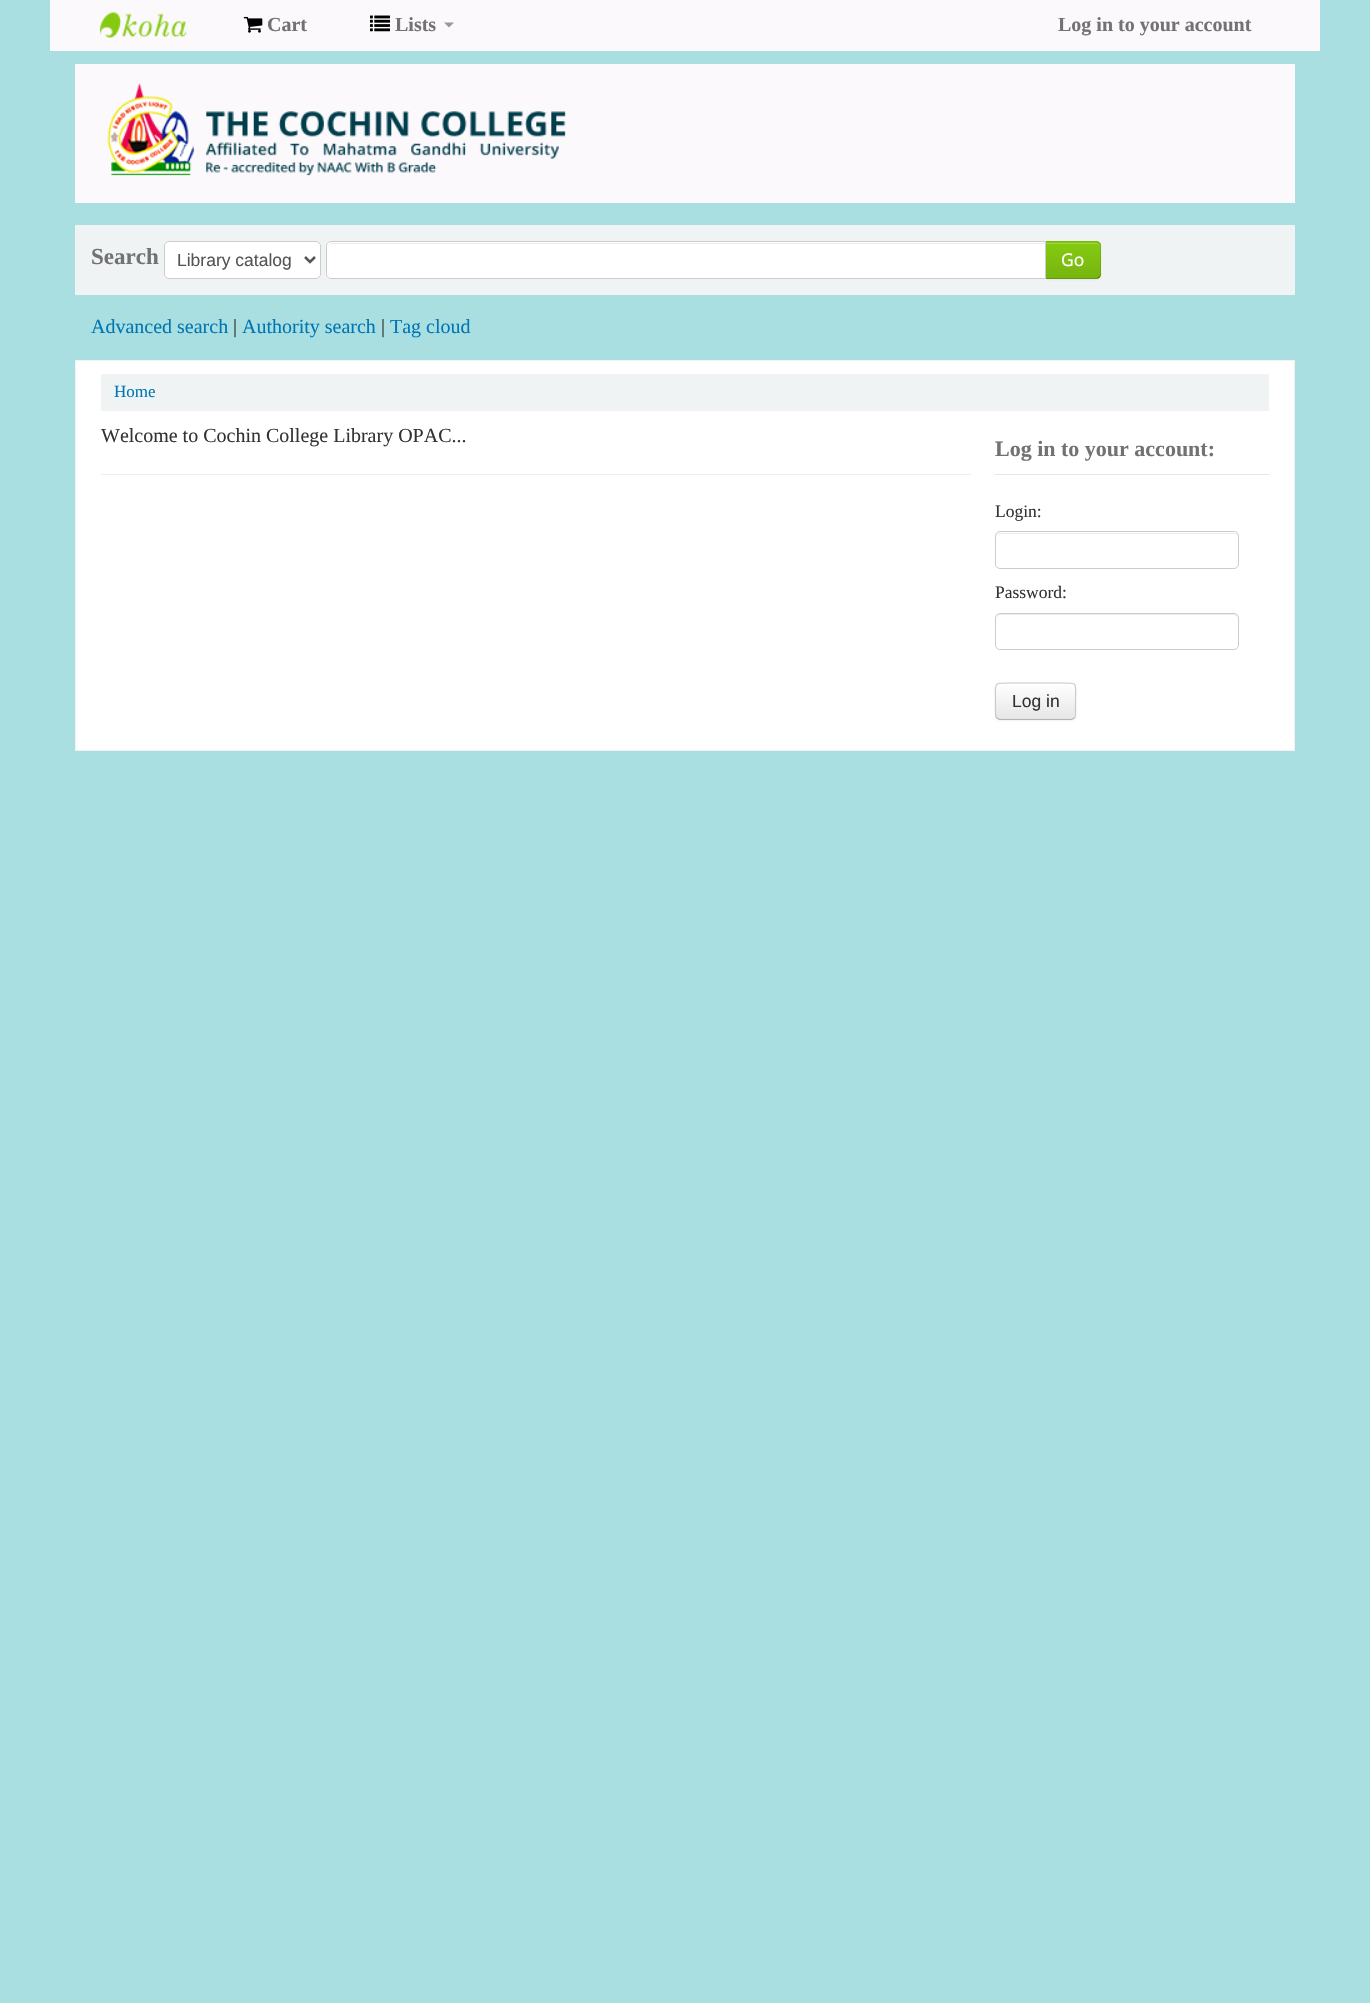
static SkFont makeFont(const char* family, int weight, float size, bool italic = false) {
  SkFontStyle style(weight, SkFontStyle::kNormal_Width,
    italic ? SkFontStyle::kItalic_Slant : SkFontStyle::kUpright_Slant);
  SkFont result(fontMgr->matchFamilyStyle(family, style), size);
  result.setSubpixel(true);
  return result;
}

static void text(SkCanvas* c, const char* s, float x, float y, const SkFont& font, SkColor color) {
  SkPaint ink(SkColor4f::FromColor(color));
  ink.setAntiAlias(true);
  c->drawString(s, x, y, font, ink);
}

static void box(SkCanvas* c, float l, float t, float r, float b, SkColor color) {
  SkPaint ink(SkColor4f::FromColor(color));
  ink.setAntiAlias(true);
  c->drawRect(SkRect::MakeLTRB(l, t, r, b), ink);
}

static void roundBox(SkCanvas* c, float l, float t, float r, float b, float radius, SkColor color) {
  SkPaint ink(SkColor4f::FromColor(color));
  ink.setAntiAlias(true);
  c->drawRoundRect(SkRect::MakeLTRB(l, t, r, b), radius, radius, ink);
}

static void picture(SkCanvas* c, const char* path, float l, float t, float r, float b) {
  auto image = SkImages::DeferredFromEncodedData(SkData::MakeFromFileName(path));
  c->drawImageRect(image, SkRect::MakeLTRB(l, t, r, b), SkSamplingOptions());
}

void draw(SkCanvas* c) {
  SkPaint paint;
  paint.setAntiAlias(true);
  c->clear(0xffaadfe2);
  box(c, 50, 0, 1320, 51, 0xfffcf9fc);
  picture(c, "img_01.png", 100, 12, 187, 38);
  picture(c, "img_02.png", 243, 16, 263, 33);
  SkFont face1 = makeFont("Liberation Serif", 700, 20);
  text(c, "Cart", 267, 31, face1, 0xff727272);
  picture(c, "img_03.png", 370, 15, 390, 32);
  text(c, "Lists", 395, 31, face1, 0xff727272);
  paint.setColor(0xff999999);
  c->drawPath(SkPathBuilder().moveTo(444, 22.5f).lineTo(454, 22.5f).lineTo(449, 27.5f).close().detach(), paint);
  text(c, "Log in to your account", 1058, 31, face1, 0xff727272);
  box(c, 75, 64, 1295, 203, 0xfffcf9fc);
  picture(c, "img_04.png", 107, 83, 566, 176);
  box(c, 75, 225, 1295, 295, 0xfff0f3f3);
  SkFont face2 = makeFont("Liberation Serif", 700, 23);
  text(c, "Search", 91, 264, face2, 0xff727272);
  paint.setColor(0xffffffff);
  c->drawRoundRect(SkRect::MakeLTRB(164.5f, 241.5f, 320.5f, 278.5f), 4.5f, 4.5f, paint);
  paint.setStyle(SkPaint::kStroke_Style);
  paint.setStrokeWidth(1);
  paint.setColor(0xffcccccc);
  c->drawRoundRect(SkRect::MakeLTRB(164.5f, 241.5f, 320.5f, 278.5f), 4.5f, 4.5f, paint);
  paint.setStrokeWidth(2.5f);
  paint.setColor(0xff555555);
  c->drawPath(SkPathBuilder().moveTo(305, 257).lineTo(310, 262).lineTo(315, 257).detach(), paint);
  SkFont face3 = makeFont("Liberation Sans", 400, 17.5f);
  text(c, "Library catalog", 177, 266, face3, 0xff555555);
  paint.setStyle(SkPaint::kFill_Style);
  paint.setColor(0x0d000000);
  paint.setMaskFilter(SkMaskFilter::MakeBlur(kNormal_SkBlurStyle, 1));
  c->drawRoundRect(SkRect::MakeLTRB(1045, 243, 1101, 280), 5, 5, paint);
  paint.setMaskFilter(nullptr);
  paint.setColor(0xff85ca11);
  c->drawPath(SkPathBuilder().moveTo(1045, 241).lineTo(1096, 241).cubicTo(1099, 241, 1101, 243, 1101, 246).lineTo(1101, 274).cubicTo(1101, 277, 1099, 279, 1096, 279).lineTo(1045, 279).close().detach(), paint);
  c->save();
  c->clipPath(SkPathBuilder().moveTo(1045, 241).lineTo(1096, 241).cubicTo(1099, 241, 1101, 243, 1101, 246).lineTo(1101, 274).cubicTo(1101, 277, 1099, 279, 1096, 279).lineTo(1045, 279).close().detach(), true);
  {
    const SkColor colors[] = {0xff85ca11, 0xff77b50f};
    const float stops[] = {0, 1};
    const SkPoint ends[] = {{1073, 243}, {1073, 278}};
    paint.setShader(SkGradientShader::MakeLinear(ends, colors, stops, 2, SkTileMode::kClamp));
    paint.setAlpha(255);
  }
  c->drawRect(SkRect::MakeLTRB(1046, 243, 1101, 278), paint);
  c->restore();
  paint.setShader(nullptr);
  paint.setColor(0xff9dd541);
  c->drawPath(SkPathBuilder().moveTo(1046, 244).lineTo(1096, 244).cubicTo(1098, 244, 1100, 245, 1100, 248).lineTo(1100, 247).cubicTo(1100, 245, 1098, 243, 1096, 243).lineTo(1046, 243).close().detach(), paint);
  paint.setColor(0x1a000000);
  c->drawPath(SkPathBuilder().moveTo(1046, 242).lineTo(1045, 241).lineTo(1098, 241).lineTo(1100, 243).lineTo(1099, 244).cubicTo(1098, 243, 1097, 242, 1096, 242).close().detach(), paint);
  c->drawPath(SkPathBuilder().moveTo(1100, 242.5f).cubicTo(1100.5f, 243.5f, 1101, 244.5f, 1101, 246).lineTo(1101, 274).cubicTo(1101, 275.5f, 1100.5f, 276.5f, 1100, 277.5f).lineTo(1099, 276.5f).cubicTo(1099.5f, 276, 1100, 275, 1100, 274).lineTo(1100, 246).cubicTo(1100, 245, 1099.5f, 244, 1099, 243.5f).close().detach(), paint);
  paint.setColor(0x40000000);
  c->drawPath(SkPathBuilder().moveTo(1098, 279).lineTo(1045, 279).lineTo(1046, 278).lineTo(1097, 278).lineTo(1099, 276).lineTo(1100, 277).close().detach(), paint);
  paint.setColor(0xffffffff);
  c->drawPath(SkPathBuilder().moveTo(331, 241).lineTo(1046, 241).lineTo(1046, 279).lineTo(331, 279).cubicTo(328, 279, 326, 277, 326, 274).lineTo(326, 246).cubicTo(326, 243, 328, 241, 331, 241).close().detach(), paint);
  paint.setColor(0xffececec);
  c->drawPath(SkPathBuilder().moveTo(331, 244).lineTo(1045, 244).lineTo(1045, 243).lineTo(332, 243).cubicTo(330, 243, 328, 245, 328, 247).lineTo(328, 248).cubicTo(328, 245, 329, 244, 331, 244).close().detach(), paint);
  paint.setStyle(SkPaint::kStroke_Style);
  paint.setStrokeWidth(1);
  paint.setColor(0xffcccccc);
  c->drawPath(SkPathBuilder().moveTo(331, 241.5f).lineTo(1045.5f, 241.5f).lineTo(1045.5f, 278.5f).lineTo(331, 278.5f).cubicTo(328.5f, 278.5f, 326.5f, 276.5f, 326.5f, 274).lineTo(326.5f, 246).cubicTo(326.5f, 243.5f, 328.5f, 241.5f, 331, 241.5f).close().detach(), paint);
  SkFont face4 = makeFont("Noto Sans", 400, 17.5f);
  text(c, "Go", 1061, 266, face4, 0xffffffff);
  SkFont face5 = makeFont("Liberation Serif", 400, 20);
  text(c, "Advanced search", 91, 333, face5, 0xff0076b2);
  text(c, "|", 233, 333, face5, 0xff333333);
  text(c, "Authority search", 242, 333, face5, 0xff0076b2);
  text(c, "|", 381, 333, face5, 0xff333333);
  text(c, "Tag cloud", 390, 333, face5, 0xff0076b2);
  paint.setStyle(SkPaint::kFill_Style);
  paint.setColor(0xffffffff);
  c->drawRect(SkRect::MakeLTRB(75.5f, 360.5f, 1294.5f, 750.5f), paint);
  paint.setStyle(SkPaint::kStroke_Style);
  paint.setColor(0xfff0f3f3);
  c->drawRect(SkRect::MakeLTRB(75.5f, 360.5f, 1294.5f, 750.5f), paint);
  box(c, 101, 374, 1269, 411, 0xfff0f3f3);
  SkFont face6 = makeFont("Liberation Serif", 400, 17);
  text(c, "Home", 114, 397, face6, 0xff0076b2);
  text(c, "Welcome to Cochin College Library OPAC...", 101, 442, face5, 0xff333333);
  box(c, 101, 474, 971, 475, 0xffeeeeee);
  box(c, 995, 474, 1269, 475, 0xffe5e5e5);
  SkFont face7 = makeFont("Liberation Serif", 700, 22);
  text(c, "Log in to your account:", 995, 456, face7, 0xff727272);
  SkFont face8 = makeFont("Liberation Serif", 400, 17.5f);
  text(c, "Login:", 995, 517, face8, 0xff333333);
  paint.setStyle(SkPaint::kFill_Style);
  paint.setColor(0xffececec);
  c->drawPath(SkPathBuilder().moveTo(1000, 534).lineTo(1234, 534).cubicTo(1236, 534, 1238, 535, 1238, 538).lineTo(1238, 537).cubicTo(1238, 535, 1236, 533, 1234, 533).lineTo(1000, 533).cubicTo(998, 533, 996, 535, 996, 537).lineTo(996, 538).cubicTo(996, 535, 998, 534, 1000, 534).close().detach(), paint);
  paint.setStyle(SkPaint::kStroke_Style);
  paint.setColor(0xffcccccc);
  c->drawRoundRect(SkRect::MakeLTRB(995.5f, 531.5f, 1238.5f, 568.5f), 4.5f, 4.5f, paint);
  text(c, "Password:", 995, 598, face8, 0xff333333);
  paint.setStyle(SkPaint::kFill_Style);
  paint.setColor(0xffececec);
  c->drawPath(SkPathBuilder().moveTo(1000, 615).lineTo(1234, 615).cubicTo(1236, 615, 1238, 617, 1238, 619).lineTo(1238, 618).cubicTo(1238, 616, 1236, 614, 1234, 614).lineTo(1000, 614).cubicTo(998, 614, 996, 616, 996, 618).lineTo(996, 619).cubicTo(996, 617, 998, 615, 1000, 615).close().detach(), paint);
  paint.setStyle(SkPaint::kStroke_Style);
  paint.setColor(0xffcccccc);
  c->drawRoundRect(SkRect::MakeLTRB(995.5f, 613.5f, 1238.5f, 649.5f), 4.5f, 4.5f, paint);
  paint.setStyle(SkPaint::kFill_Style);
  paint.setColor(0x0d000000);
  paint.setMaskFilter(SkMaskFilter::MakeBlur(kNormal_SkBlurStyle, 1));
  c->drawRoundRect(SkRect::MakeLTRB(995, 684, 1076, 721), 5, 5, paint);
  paint.setMaskFilter(nullptr);
  roundBox(c, 995, 683, 1076, 720, 5, 0xfff5f5f5);
  c->save();
  c->clipPath(SkPathBuilder().moveTo(1000, 683).lineTo(1071, 683).cubicTo(1074, 683, 1076, 685, 1076, 688).lineTo(1076, 715).cubicTo(1076, 718, 1074, 720, 1071, 720).lineTo(1000, 720).cubicTo(997, 720, 995, 718, 995, 715).lineTo(995, 688).cubicTo(995, 685, 997, 683, 1000, 683).close().detach(), true);
  {
    const SkColor colors[] = {0xffffffff, 0xffe6e6e6};
    const float stops[] = {0, 1};
    const SkPoint ends[] = {{1036, 684}, {1036, 719}};
    paint.setShader(SkGradientShader::MakeLinear(ends, colors, stops, 2, SkTileMode::kClamp));
    paint.setAlpha(255);
  }
  c->drawRect(SkRect::MakeLTRB(995, 684, 1076, 719), paint);
  c->restore();
  paint.setStyle(SkPaint::kStroke_Style);
  paint.setStrokeWidth(1.2f);
  paint.setShader(nullptr);
  paint.setColor(0xffb3b3b3);
  c->drawPath(SkPathBuilder().moveTo(1074.5f, 718).lineTo(1071.5f, 719.5f).lineTo(999.5f, 719.5f).lineTo(997, 718).detach(), paint);
  paint.setColor(0xffcccccc);
  c->drawPath(SkPathBuilder().moveTo(997, 718).cubicTo(995, 716, 995.5f, 713, 995.5f, 710.5f).lineTo(995.5f, 701).cubicTo(995.5f, 681.5f, 992.5f, 683, 1012, 683).lineTo(1059.5f, 683).cubicTo(1079, 683, 1075.5f, 681.5f, 1075.5f, 701).lineTo(1075.5f, 710.5f).cubicTo(1075.5f, 713, 1076.5f, 716, 1074.5f, 718).detach(), paint);
  text(c, "Log in", 1012, 707, face3, 0xff333333);
}
